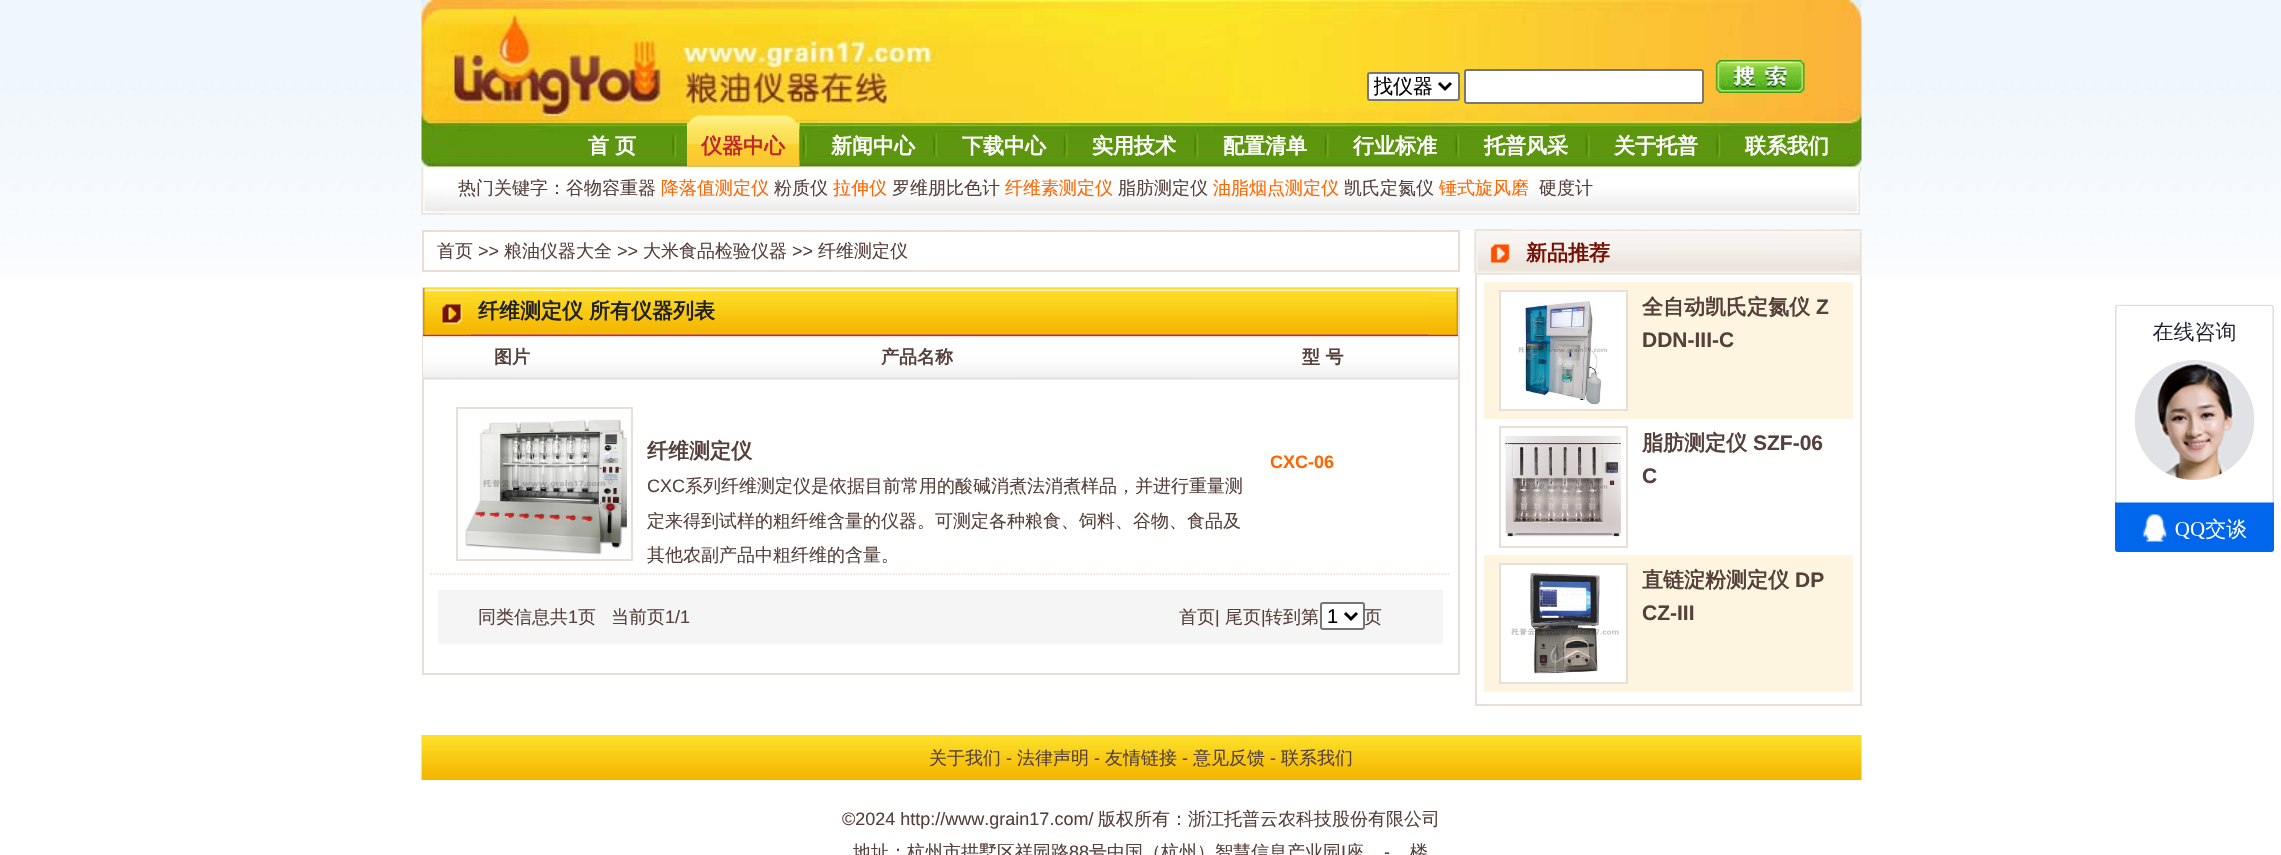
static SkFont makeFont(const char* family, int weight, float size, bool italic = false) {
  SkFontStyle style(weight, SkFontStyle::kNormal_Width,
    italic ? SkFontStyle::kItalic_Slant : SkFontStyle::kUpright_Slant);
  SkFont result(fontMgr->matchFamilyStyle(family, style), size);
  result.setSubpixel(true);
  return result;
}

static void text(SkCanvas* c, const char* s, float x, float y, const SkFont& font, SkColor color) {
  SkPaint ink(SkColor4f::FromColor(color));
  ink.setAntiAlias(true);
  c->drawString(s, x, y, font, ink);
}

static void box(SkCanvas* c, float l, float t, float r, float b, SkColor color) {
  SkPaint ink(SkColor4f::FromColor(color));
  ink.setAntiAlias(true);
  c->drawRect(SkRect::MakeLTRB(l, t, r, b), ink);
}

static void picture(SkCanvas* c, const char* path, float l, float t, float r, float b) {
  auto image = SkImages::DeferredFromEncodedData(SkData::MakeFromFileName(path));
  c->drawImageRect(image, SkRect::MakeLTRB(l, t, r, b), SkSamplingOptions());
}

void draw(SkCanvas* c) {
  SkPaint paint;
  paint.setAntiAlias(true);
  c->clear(0xffffffff);
  picture(c, "img_01.png", 0, 0, 2281, 278);
  picture(c, "img_02.png", 421, 0, 1862, 171);
  paint.setColor(0xffffffff);
  c->drawRoundRect(SkRect::MakeLTRB(1368, 73, 1459, 100), 2, 2, paint);
  paint.setStyle(SkPaint::kStroke_Style);
  paint.setStrokeWidth(2);
  paint.setColor(0xff767676);
  c->drawRoundRect(SkRect::MakeLTRB(1368, 73, 1459, 100), 2, 2, paint);
  paint.setStrokeWidth(3);
  paint.setColor(0xff000000);
  c->drawPath(SkPathBuilder().moveTo(1439, 83).lineTo(1445, 89).lineTo(1451, 83).detach(), paint);
  c->save();
  c->clipRect(SkRect::MakeLTRB(1374, 74, 1434, 99));
  SkFont face1 = makeFont("WenQuanYi Zen Hei", 500, 20);
  text(c, "找仪器", 1373, 93, face1, 0xff000000);
  c->restore();
  paint.setStyle(SkPaint::kFill_Style);
  paint.setColor(0xffffffff);
  c->drawRoundRect(SkRect::MakeLTRB(1465, 70, 1703, 103), 2, 2, paint);
  paint.setStyle(SkPaint::kStroke_Style);
  paint.setStrokeWidth(2);
  paint.setColor(0xff767676);
  c->drawRoundRect(SkRect::MakeLTRB(1465, 70, 1703, 103), 2, 2, paint);
  picture(c, "img_03.png", 1715, 60, 1805, 93);
  SkFont face2 = makeFont("WenQuanYi Zen Hei", 700, 21);
  text(c, "首", 588, 153, face2, 0xffffffff);
  text(c, "页", 615, 153, face2, 0xffffffff);
  picture(c, "img_04.png", 672, 133, 677, 158);
  picture(c, "img_05.png", 687, 115, 800, 167);
  text(c, "仪器中心", 701, 153, face2, 0xffc1272d);
  picture(c, "img_06.png", 799, 129, 810, 161);
  text(c, "新闻中心", 831, 153, face2, 0xffffffff);
  picture(c, "img_07.png", 930, 133, 940, 158);
  text(c, "下载中心", 962, 153, face2, 0xffffffff);
  picture(c, "img_08.png", 1063, 133, 1068, 158);
  text(c, "实用技术", 1092, 153, face2, 0xffffffff);
  picture(c, "img_09.png", 1191, 129, 1201, 158);
  text(c, "配置清单", 1223, 153, face2, 0xffffffff);
  picture(c, "img_10.png", 1324, 133, 1329, 158);
  text(c, "行业标准", 1353, 153, face2, 0xffffffff);
  picture(c, "img_11.png", 1453, 133, 1462, 158);
  text(c, "托普风采", 1484, 153, face2, 0xffffffff);
  picture(c, "img_12.png", 1583, 131, 1593, 158);
  text(c, "关于托普", 1614, 153, face2, 0xffffffff);
  picture(c, "img_13.png", 1713, 130, 1723, 158);
  text(c, "联系我们", 1745, 153, face2, 0xffffffff);
  picture(c, "img_14.png", 421, 171, 1862, 215);
  picture(c, "img_15.png", 421, 171, 444, 215);
  SkFont face3 = makeFont("WenQuanYi Zen Hei", 500, 18);
  text(c, "热门关键字：谷物容重器", 458, 194, face3, 0xff55403b);
  text(c, "降落值测定仪", 661, 194, face3, 0xffff6600);
  text(c, "粉质仪", 774, 194, face3, 0xff55403b);
  text(c, "拉伸仪", 833, 194, face3, 0xffff6600);
  text(c, "罗维朋比色计", 892, 194, face3, 0xff55403b);
  text(c, "纤维素测定仪", 1005, 194, face3, 0xffff6600);
  text(c, "脂肪测定仪", 1118, 194, face3, 0xff55403b);
  text(c, "油脂烟点测定仪", 1213, 194, face3, 0xffff6600);
  text(c, "凯氏定氮仪", 1344, 194, face3, 0xff55403b);
  text(c, "锤式旋风磨", 1439, 194, face3, 0xffff6600);
  text(c, "硬度计", 1539, 194, face3, 0xff55403b);
  picture(c, "img_16.png", 1848, 171, 1862, 215);
  box(c, 422, 230, 1862, 278, 0xffffffff);
  paint.setColor(0xffe9dfd6);
  c->drawRect(SkRect::MakeLTRB(423, 231, 1459, 271), paint);
  text(c, "首页", 437, 257, face3, 0xff55403b);
  SkFont face4 = makeFont("Liberation Sans", 400, 18);
  text(c, ">>", 478, 257, face4, 0xff55403b);
  text(c, "粮油仪器大全", 504, 257, face3, 0xff55403b);
  text(c, ">>", 617, 257, face4, 0xff55403b);
  text(c, "大米食品检验仪器", 643, 257, face3, 0xff55403b);
  text(c, ">>", 792, 257, face4, 0xff55403b);
  text(c, "纤维测定仪", 818, 257, face3, 0xff55403b);
  c->drawRect(SkRect::MakeLTRB(423, 288, 1459, 674), paint);
  picture(c, "img_17.png", 423, 288, 1458, 335);
  picture(c, "img_20.png", 423, 334, 1458, 380);
  picture(c, "img_18.png", 423, 288, 471, 335);
  text(c, "纤维测定仪", 478, 318, face2, 0xff222222);
  text(c, "所有仪器列表", 589, 318, face2, 0xff222222);
  picture(c, "img_19.png", 1428, 288, 1458, 335);
  SkFont face5 = makeFont("WenQuanYi Zen Hei", 700, 18);
  text(c, "图片", 494, 363, face5, 0xff55403b);
  text(c, "产品名称", 881, 363, face5, 0xff55403b);
  text(c, "型 号", 1302, 363, face5, 0xff55403b);
  paint.setStrokeWidth(1.5f);
  paint.setPathEffect(SkDashPathEffect::Make({{1.5f, 1.5f}}, 0));
  c->drawPath(SkPathBuilder().moveTo(430.5f, 574).lineTo(1450.5f, 574).detach(), paint);
  paint.setPathEffect(nullptr);
  paint.setStrokeWidth(2);
  c->drawRect(SkRect::MakeLTRB(457, 408, 632, 560), paint);
  picture(c, "img_21.png", 465, 419, 627, 555);
  text(c, "纤维测定仪", 647, 458, face2, 0xff55403b);
  text(c, "CXC", 647, 492, face4, 0xff55403b);
  text(c, "系列纤维测定仪是依据目前常用的酸碱消煮法消煮样品，并进行重量测", 685, 492, face3, 0xff55403b);
  text(c, "定来得到试样的粗纤维含量的仪器。可测定各种粮食、饲料、谷物、食品及", 647, 527, face3, 0xff55403b);
  text(c, "其他农副产品中粗纤维的含量。", 647, 561, face3, 0xff55403b);
  SkFont face6 = makeFont("Liberation Sans", 700, 18);
  text(c, "CXC-06", 1270, 468, face6, 0xffff6600);
  box(c, 438, 590, 1443, 644, 0xfff5f5f5);
  text(c, "同类信息共", 478, 623, face3, 0xff55403b);
  text(c, "1", 568, 623, face4, 0xff55403b);
  text(c, "页", 578, 623, face3, 0xff55403b);
  text(c, "当前页", 611, 623, face3, 0xff55403b);
  text(c, "1/1", 665, 623, face4, 0xff55403b);
  text(c, "首页", 1179, 623, face3, 0xff55403b);
  text(c, "|", 1215, 623, face4, 0xff55403b);
  text(c, "尾页", 1225, 623, face3, 0xff55403b);
  text(c, "|", 1261, 623, face4, 0xff55403b);
  text(c, "转到第", 1265, 623, face3, 0xff55403b);
  paint.setStyle(SkPaint::kFill_Style);
  paint.setColor(0xffffffff);
  c->drawRoundRect(SkRect::MakeLTRB(1321, 603, 1364, 629), 2, 2, paint);
  paint.setStyle(SkPaint::kStroke_Style);
  paint.setColor(0xff767676);
  c->drawRoundRect(SkRect::MakeLTRB(1321, 603, 1364, 629), 2, 2, paint);
  paint.setStrokeWidth(3);
  paint.setColor(0xff000000);
  c->drawPath(SkPathBuilder().moveTo(1345, 613).lineTo(1351, 619).lineTo(1357, 613).detach(), paint);
  SkFont face7 = makeFont("Liberation Sans", 400, 20);
  text(c, "1", 1327, 623, face7, 0xff000000);
  text(c, "页", 1364, 623, face3, 0xff55403b);
  picture(c, "img_22.png", 1474, 229, 1862, 275);
  picture(c, "img_23.png", 1474, 229, 1512, 275);
  text(c, "新品推荐", 1526, 260, face2, 0xff751205);
  picture(c, "img_24.png", 1845, 229, 1862, 275);
  box(c, 1860, 275, 1862, 705, 0xffe9dfd6);
  box(c, 1475, 704, 1862, 706, 0xffe9dfd6);
  box(c, 1475, 275, 1477, 705, 0xffe9dfd6);
  box(c, 1484, 282, 1853, 419, 0xfffdf5df);
  paint.setStyle(SkPaint::kFill_Style);
  paint.setColor(0xffffffff);
  c->drawRect(SkRect::MakeLTRB(1500, 291, 1627, 410), paint);
  paint.setStyle(SkPaint::kStroke_Style);
  paint.setStrokeWidth(2);
  paint.setColor(0xffe9dfd6);
  c->drawRect(SkRect::MakeLTRB(1500, 291, 1627, 410), paint);
  picture(c, "img_25.png", 1518, 301, 1608, 405);
  text(c, "全自动凯氏定氮仪", 1642, 314, face2, 0xff55403b);
  SkFont face8 = makeFont("Liberation Sans", 700, 21);
  text(c, "Z", 1816, 314, face8, 0xff55403b);
  text(c, "DDN-III-C", 1642, 347, face8, 0xff55403b);
  c->drawRect(SkRect::MakeLTRB(1500, 427, 1627, 547), paint);
  picture(c, "img_26.png", 1505, 435, 1622, 537);
  text(c, "脂肪测定仪", 1642, 450, face2, 0xff55403b);
  text(c, "SZF-06", 1753, 450, face8, 0xff55403b);
  text(c, "C", 1642, 483, face8, 0xff55403b);
  box(c, 1484, 555, 1853, 692, 0xfffdf5df);
  paint.setStyle(SkPaint::kFill_Style);
  paint.setColor(0xffffffff);
  c->drawRect(SkRect::MakeLTRB(1500, 564, 1627, 683), paint);
  paint.setStyle(SkPaint::kStroke_Style);
  paint.setColor(0xffe9dfd6);
  c->drawRect(SkRect::MakeLTRB(1500, 564, 1627, 683), paint);
  picture(c, "img_27.png", 1511, 572, 1619, 674);
  text(c, "直链淀粉测定仪", 1642, 587, face2, 0xff55403b);
  text(c, "DP", 1795, 587, face8, 0xff55403b);
  text(c, "CZ-III", 1642, 620, face8, 0xff55403b);
  picture(c, "img_28.png", 2115, 304, 2274, 552);
  picture(c, "img_29.png", 421, 735, 1862, 780);
  text(c, "关于我们", 929, 764, face3, 0xff55403b);
  text(c, "-", 1006, 764, face4, 0xff55403b);
  text(c, "法律声明", 1017, 764, face3, 0xff55403b);
  text(c, "-", 1094, 764, face4, 0xff55403b);
  text(c, "友情链接", 1105, 764, face3, 0xff55403b);
  text(c, "-", 1182, 764, face4, 0xff55403b);
  text(c, "意见反馈", 1193, 764, face3, 0xff55403b);
  text(c, "-", 1270, 764, face4, 0xff55403b);
  text(c, "联系我们", 1281, 764, face3, 0xff55403b);
  text(c, "©2024 http://www.grain17.com/", 842, 825, face4, 0xff55403b);
  text(c, "版权所有：浙江托普云农科技股份有限公司", 1098, 825, face3, 0xff55403b);
  text(c, "地址：杭州市拱墅区祥园路", 853, 858, face3, 0xff55403b);
  text(c, "88", 1069, 858, face4, 0xff55403b);
  text(c, "号中国（杭州）智慧信息产业园", 1089, 858, face3, 0xff55403b);
  text(c, "I", 1341, 858, face4, 0xff55403b);
  text(c, "座", 1346, 858, face3, 0xff55403b);
  text(c, "-", 1384, 858, face4, 0xff55403b);
  text(c, "楼", 1410, 858, face3, 0xff55403b);
}
